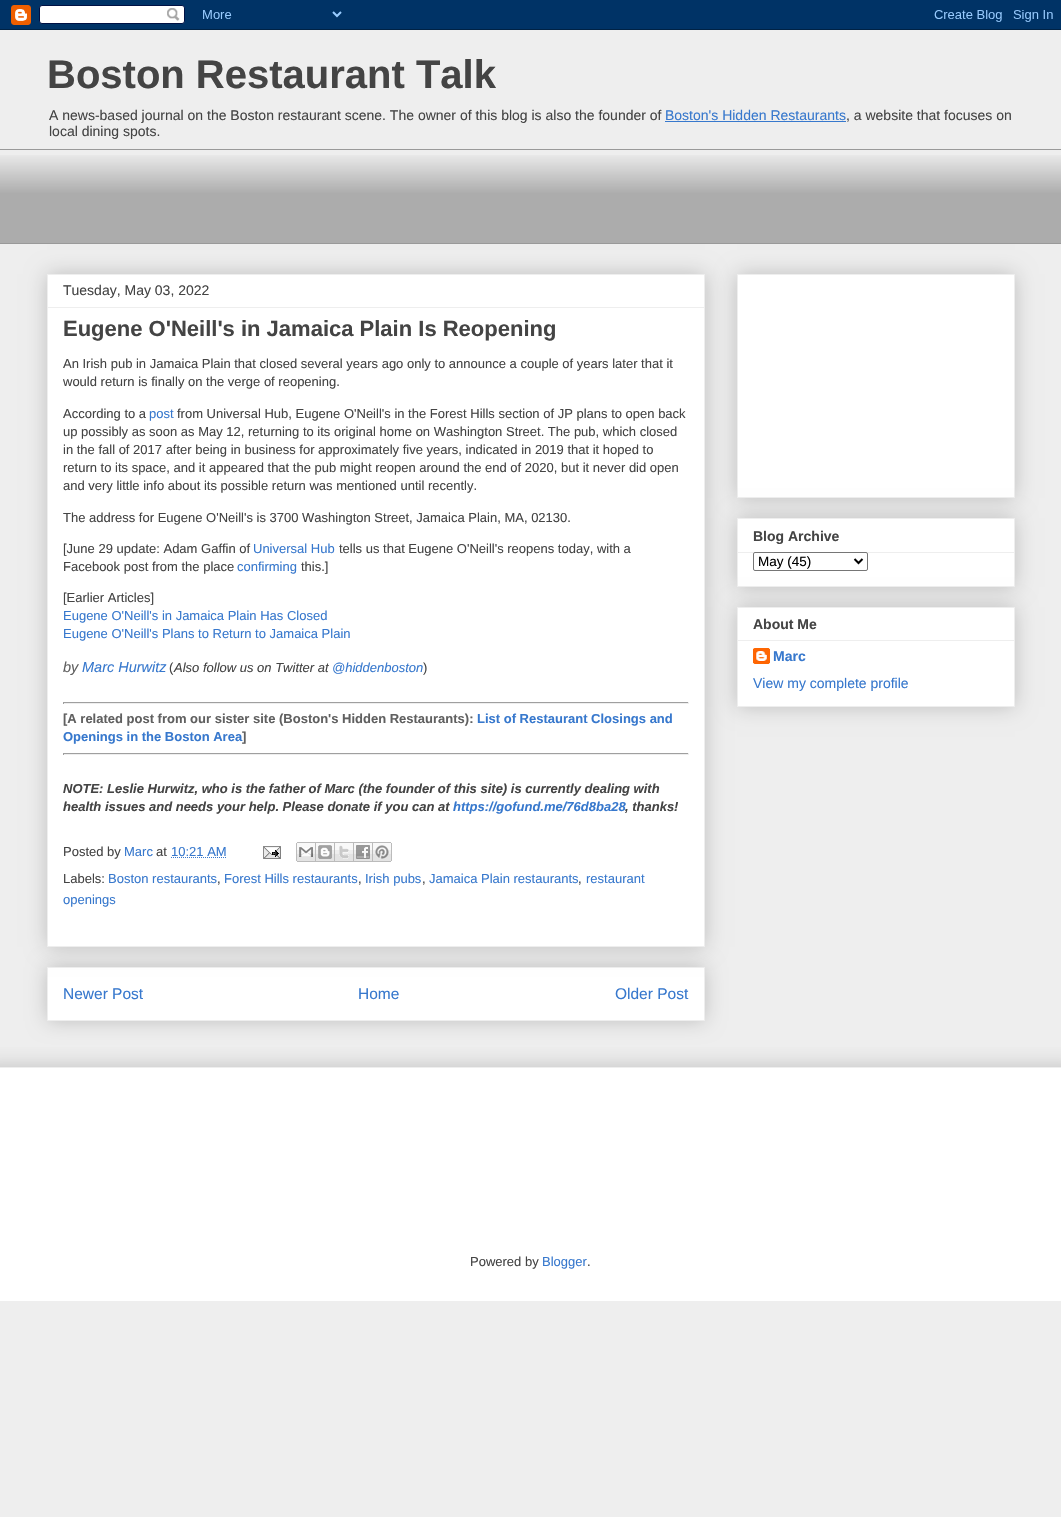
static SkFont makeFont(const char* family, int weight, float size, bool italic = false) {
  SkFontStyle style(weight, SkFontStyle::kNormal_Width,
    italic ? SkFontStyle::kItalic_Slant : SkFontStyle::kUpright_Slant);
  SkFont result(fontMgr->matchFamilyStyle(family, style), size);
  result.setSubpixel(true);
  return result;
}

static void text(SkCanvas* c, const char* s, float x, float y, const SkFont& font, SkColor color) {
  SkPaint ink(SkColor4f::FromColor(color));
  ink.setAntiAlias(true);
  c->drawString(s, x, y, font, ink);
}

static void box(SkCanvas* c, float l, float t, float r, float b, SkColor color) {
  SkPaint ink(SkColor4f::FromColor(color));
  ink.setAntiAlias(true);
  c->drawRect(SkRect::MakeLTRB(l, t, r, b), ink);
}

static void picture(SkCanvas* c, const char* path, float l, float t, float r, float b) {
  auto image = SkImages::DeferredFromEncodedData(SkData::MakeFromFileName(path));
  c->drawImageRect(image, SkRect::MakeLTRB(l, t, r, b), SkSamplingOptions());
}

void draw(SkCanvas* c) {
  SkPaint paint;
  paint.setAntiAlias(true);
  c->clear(0xffeeeeee);
  picture(c, "img_01.png", 0, 0, 1061, 30);
  SkFont face1 = makeFont("Liberation Sans", 700, 40);
  text(c, "Boston Restaurant Talk", 47, 88, face1, 0xff444444);
  SkFont face2 = makeFont("Liberation Sans", 400, 14);
  text(c, "A news-based journal on the Boston restaurant scene. The owner of this blog is also the founder of", 49, 120, face2, 0xff444444);
  text(c, "Boston's Hidden Restaurants", 665, 120, face2, 0xff3778cd);
  box(c, 665, 121, 846, 122, 0xff3778cd);
  text(c, ", a website that focuses on", 846, 120, face2, 0xff444444);
  text(c, "local dining spots.", 49, 136, face2, 0xff444444);
  picture(c, "img_02.png", 0, 155, 1061, 243);
  box(c, 0, 149, 1061, 150, 0xff999999);
  box(c, 0, 243, 1061, 244, 0xff999999);
  paint.setColor(0x33000000);
  paint.setMaskFilter(SkMaskFilter::MakeBlur(kNormal_SkBlurStyle, 10));
  c->drawRect(SkRect::MakeLTRB(47, 967, 705, 1021), paint);
  paint.setMaskFilter(nullptr);
  paint.setColor(0xffffffff);
  c->drawRect(SkRect::MakeLTRB(47.5f, 967.5f, 704.5f, 1020.5f), paint);
  paint.setStyle(SkPaint::kStroke_Style);
  paint.setStrokeWidth(1);
  paint.setColor(0xffeeeeee);
  c->drawRect(SkRect::MakeLTRB(47.5f, 967.5f, 704.5f, 1020.5f), paint);
  paint.setStyle(SkPaint::kFill_Style);
  paint.setColor(0x33000000);
  paint.setMaskFilter(SkMaskFilter::MakeBlur(kNormal_SkBlurStyle, 10));
  c->drawRect(SkRect::MakeLTRB(47, 274, 705, 947), paint);
  paint.setMaskFilter(nullptr);
  paint.setColor(0xffffffff);
  c->drawRect(SkRect::MakeLTRB(47.5f, 274.5f, 704.5f, 946.5f), paint);
  paint.setStyle(SkPaint::kStroke_Style);
  paint.setColor(0xffeeeeee);
  c->drawRect(SkRect::MakeLTRB(47.5f, 274.5f, 704.5f, 946.5f), paint);
  text(c, "Tuesday, May 03, 2022", 63, 295, face2, 0xff444444);
  box(c, 48, 307, 704, 308, 0xffeeeeee);
  SkFont face3 = makeFont("Liberation Sans", 700, 22);
  text(c, "Eugene O'Neill's in Jamaica Plain Is Reopening", 63, 336, face3, 0xff444444);
  SkFont face4 = makeFont("Liberation Sans", 400, 13);
  text(c, "An Irish pub in Jamaica Plain that closed several years ago only to announce a couple of years later that it", 63, 368, face4, 0xff444444);
  text(c, "would return is finally on the verge of reopening.", 63, 386, face4, 0xff444444);
  text(c, "According to a", 63, 418, face4, 0xff444444);
  text(c, "post", 149, 418, face4, 0xff3778cd);
  text(c, "from Universal Hub, Eugene O'Neill's in the Forest Hills section of JP plans to open back", 177, 418, face4, 0xff444444);
  text(c, "up possibly as soon as May 12, returning to its original home on Washington Street. The pub, which closed", 63, 436, face4, 0xff444444);
  text(c, "in the fall of 2017 after being in business for approximately five years, indicated in 2019 that it hoped to", 63, 454, face4, 0xff444444);
  text(c, "return to its space, and it appeared that the pub might reopen around the end of 2020, but it never did open", 63, 472, face4, 0xff444444);
  text(c, "and very little info about its possible return was mentioned until recently.", 63, 490, face4, 0xff444444);
  text(c, "The address for Eugene O'Neill's is 3700 Washington Street, Jamaica Plain, MA, 02130.", 63, 522, face4, 0xff444444);
  text(c, "[June 29 update: Adam Gaffin of", 63, 553, face4, 0xff444444);
  text(c, "Universal Hub", 253, 553, face4, 0xff3778cd);
  text(c, "tells us that Eugene O'Neill's reopens today, with a", 339, 553, face4, 0xff444444);
  text(c, "Facebook post from the place", 63, 571, face4, 0xff444444);
  text(c, "confirming", 237, 571, face4, 0xff3778cd);
  text(c, "this.]", 301, 571, face4, 0xff444444);
  text(c, "[Earlier Articles]", 63, 602, face4, 0xff444444);
  text(c, "Eugene O'Neill's in Jamaica Plain Has Closed", 63, 620, face4, 0xff3778cd);
  text(c, "Eugene O'Neill's Plans to Return to Jamaica Plain", 63, 638, face4, 0xff3778cd);
  SkFont face5 = makeFont("Liberation Sans", 400, 14.5f, true);
  text(c, "by", 63, 672, face5, 0xff606060);
  text(c, "Marc Hurwitz", 82, 672, face5, 0xff3778cd);
  text(c, "(", 169, 672, face4, 0xff444444);
  SkFont face6 = makeFont("Liberation Sans", 400, 13, true);
  text(c, "Also follow us on Twitter at", 174, 672, face6, 0xff444444);
  text(c, "@hiddenboston", 332, 672, face6, 0xff3778cd);
  text(c, ")", 423, 672, face4, 0xff444444);
  box(c, 63, 702, 689, 703, 0xff9f9f9f);
  box(c, 688, 702, 689, 704, 0xffeeeeee);
  box(c, 63, 703, 689, 704, 0xffeeeeee);
  box(c, 63, 702, 64, 704, 0xff9f9f9f);
  SkFont face7 = makeFont("Liberation Sans", 700, 13);
  text(c, "[A related post from our sister site (Boston's Hidden Restaurants):", 63, 723, face7, 0xff606060);
  text(c, "List of Restaurant Closings and", 477, 723, face7, 0xff3778cd);
  text(c, "Openings in the Boston Area", 63, 741, face7, 0xff3778cd);
  text(c, "]", 242, 741, face7, 0xff606060);
  box(c, 63, 753, 689, 754, 0xff9f9f9f);
  box(c, 688, 753, 689, 755, 0xffeeeeee);
  box(c, 63, 754, 689, 755, 0xffeeeeee);
  box(c, 63, 753, 64, 755, 0xff9f9f9f);
  SkFont face8 = makeFont("Liberation Sans", 700, 13, true);
  text(c, "NOTE: Leslie Hurwitz, who is the father of Marc (the founder of this site) is currently dealing with", 63, 793, face8, 0xff444444);
  text(c, "health issues and needs your help. Please donate if you can at", 63, 811, face8, 0xff444444);
  text(c, "https://gofund.me/76d8ba28", 453, 811, face8, 0xff3778cd);
  text(c, ", thanks!", 625, 811, face8, 0xff444444);
  text(c, "Posted by", 63, 856, face4, 0xff444444);
  text(c, "Marc", 124, 856, face4, 0xff3778cd);
  text(c, "at", 156, 856, face4, 0xff444444);
  text(c, "10:21 AM", 171, 856, face4, 0xff3778cd);
  paint.setColor(0xff3778cd);
  paint.setPathEffect(SkDashPathEffect::Make({{1, 1}}, 0));
  c->drawPath(SkPathBuilder().moveTo(171, 857.5f).lineTo(226.5f, 857.5f).detach(), paint);
  paint.setPathEffect(nullptr);
  picture(c, "img_03.png", 263, 846, 281, 859);
  picture(c, "img_04.png", 296, 842, 316, 862);
  picture(c, "img_05.png", 316, 842, 335, 862);
  picture(c, "img_06.png", 335, 842, 354, 862);
  picture(c, "img_07.png", 354, 842, 373, 862);
  picture(c, "img_08.png", 373, 842, 392, 862);
  text(c, "Labels:", 63, 883, face4, 0xff444444);
  text(c, "Boston restaurants", 108, 883, face4, 0xff3778cd);
  text(c, ",", 217, 883, face4, 0xff444444);
  text(c, "Forest Hills restaurants", 224, 883, face4, 0xff3778cd);
  text(c, ",", 358, 883, face4, 0xff444444);
  text(c, "Irish pubs", 365, 883, face4, 0xff3778cd);
  text(c, ",", 422, 883, face4, 0xff444444);
  text(c, "Jamaica Plain restaurants", 429, 883, face4, 0xff3778cd);
  text(c, ",", 578, 883, face4, 0xff444444);
  text(c, "restaurant", 586, 883, face4, 0xff3778cd);
  text(c, "openings", 63, 904, face4, 0xff3778cd);
  SkFont face9 = makeFont("Liberation Sans", 400, 15.5f);
  text(c, "Newer Post", 63, 999, face9, 0xff3778cd);
  text(c, "Home", 358, 999, face9, 0xff3778cd);
  text(c, "Older Post", 615, 999, face9, 0xff3778cd);
  paint.setStyle(SkPaint::kFill_Style);
  paint.setColor(0x33000000);
  paint.setMaskFilter(SkMaskFilter::MakeBlur(kNormal_SkBlurStyle, 10));
  c->drawRect(SkRect::MakeLTRB(737, 274, 1015, 498), paint);
  paint.setMaskFilter(nullptr);
  paint.setColor(0xffffffff);
  c->drawRect(SkRect::MakeLTRB(737.5f, 274.5f, 1014.5f, 497.5f), paint);
  paint.setStyle(SkPaint::kStroke_Style);
  paint.setColor(0xffeeeeee);
  c->drawRect(SkRect::MakeLTRB(737.5f, 274.5f, 1014.5f, 497.5f), paint);
  paint.setStyle(SkPaint::kFill_Style);
  paint.setColor(0x33000000);
  paint.setMaskFilter(SkMaskFilter::MakeBlur(kNormal_SkBlurStyle, 10));
  c->drawRect(SkRect::MakeLTRB(737, 518, 1015, 587), paint);
  paint.setMaskFilter(nullptr);
  paint.setColor(0xffffffff);
  c->drawRect(SkRect::MakeLTRB(737.5f, 518.5f, 1014.5f, 586.5f), paint);
  paint.setStyle(SkPaint::kStroke_Style);
  paint.setColor(0xffeeeeee);
  c->drawRect(SkRect::MakeLTRB(737.5f, 518.5f, 1014.5f, 586.5f), paint);
  SkFont face10 = makeFont("Liberation Sans", 700, 14);
  text(c, "Blog Archive", 753, 541, face10, 0xff444444);
  box(c, 738, 552, 1014, 553, 0xffeeeeee);
  paint.setStyle(SkPaint::kFill_Style);
  paint.setColor(0xffffffff);
  c->drawRoundRect(SkRect::MakeLTRB(753.5f, 552.5f, 867.5f, 570.5f), 1.5f, 1.5f, paint);
  paint.setStyle(SkPaint::kStroke_Style);
  paint.setColor(0xff767676);
  c->drawRoundRect(SkRect::MakeLTRB(753.5f, 552.5f, 867.5f, 570.5f), 1.5f, 1.5f, paint);
  paint.setStrokeWidth(2);
  paint.setColor(0xff000000);
  c->drawPath(SkPathBuilder().moveTo(854.5f, 559).lineTo(858.5f, 563).lineTo(862.5f, 559).detach(), paint);
  SkFont face11 = makeFont("Liberation Sans", 400, 13.5f);
  text(c, "May (45)", 758, 566, face11, 0xff000000);
  paint.setStyle(SkPaint::kFill_Style);
  paint.setColor(0x33000000);
  paint.setMaskFilter(SkMaskFilter::MakeBlur(kNormal_SkBlurStyle, 10));
  c->drawRect(SkRect::MakeLTRB(737, 607, 1015, 707), paint);
  paint.setMaskFilter(nullptr);
  paint.setColor(0xffffffff);
  c->drawRect(SkRect::MakeLTRB(737.5f, 607.5f, 1014.5f, 706.5f), paint);
  paint.setStyle(SkPaint::kStroke_Style);
  paint.setStrokeWidth(1);
  paint.setColor(0xffeeeeee);
  c->drawRect(SkRect::MakeLTRB(737.5f, 607.5f, 1014.5f, 706.5f), paint);
  text(c, "About Me", 753, 629, face10, 0xff444444);
  box(c, 738, 640, 1014, 641, 0xffeeeeee);
  picture(c, "img_09.png", 753, 648, 770, 664);
  text(c, "Marc", 773, 661, face10, 0xff3778cd);
  text(c, "View my complete profile", 753, 688, face2, 0xff3778cd);
  c->save();
  c->clipRect(SkRect::MakeLTRB(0, 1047, 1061, 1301));
  paint.setStyle(SkPaint::kFill_Style);
  paint.setColor(0x33000000);
  paint.setMaskFilter(SkMaskFilter::MakeBlur(kNormal_SkBlurStyle, 10));
  c->drawRect(SkRect::MakeLTRB(-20, 1067, 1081, 1301), paint);
  paint.setMaskFilter(nullptr);
  c->restore();
  box(c, 0, 1068, 1061, 1301, 0xffffffff);
  box(c, 0, 1067, 1061, 1068, 0xffeeeeee);
  text(c, "Powered by", 470, 1266, face4, 0xff444444);
  text(c, "Blogger", 542, 1266, face4, 0xff3778cd);
  text(c, ".", 587, 1266, face4, 0xff444444);
}
